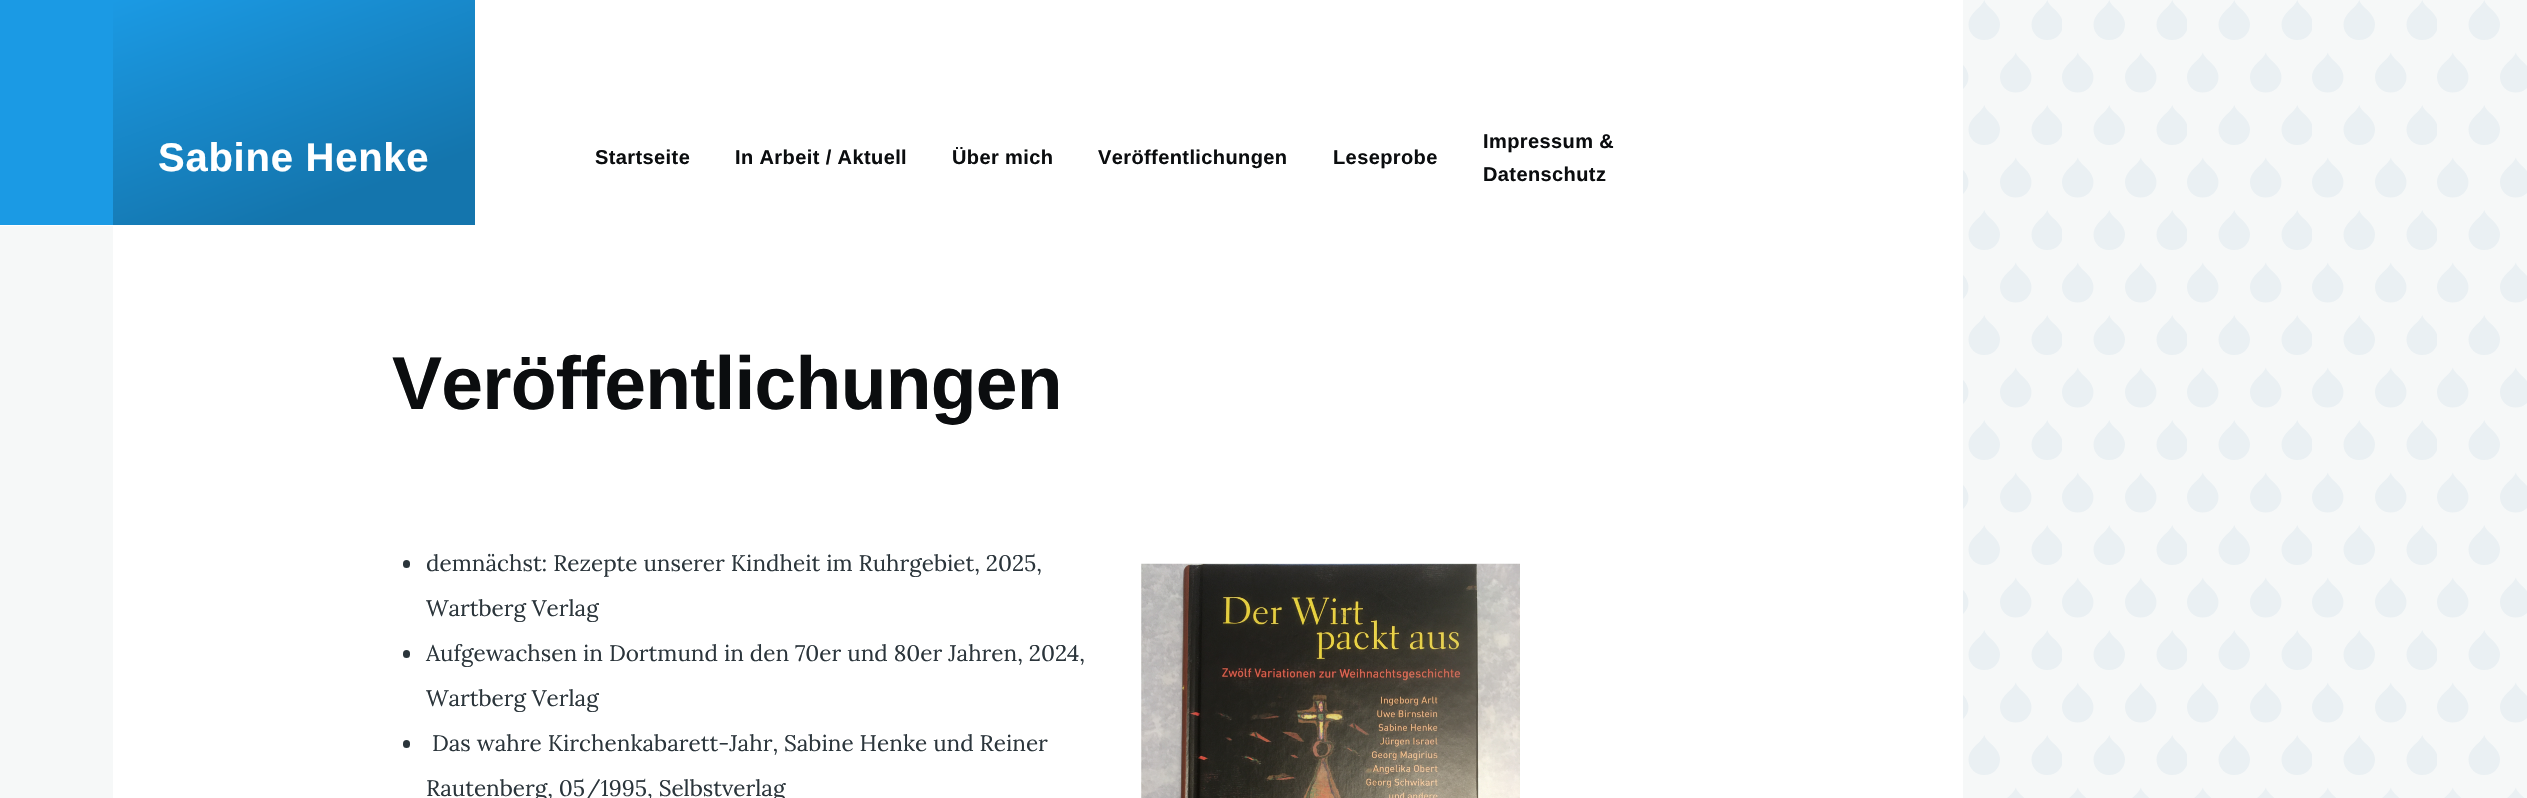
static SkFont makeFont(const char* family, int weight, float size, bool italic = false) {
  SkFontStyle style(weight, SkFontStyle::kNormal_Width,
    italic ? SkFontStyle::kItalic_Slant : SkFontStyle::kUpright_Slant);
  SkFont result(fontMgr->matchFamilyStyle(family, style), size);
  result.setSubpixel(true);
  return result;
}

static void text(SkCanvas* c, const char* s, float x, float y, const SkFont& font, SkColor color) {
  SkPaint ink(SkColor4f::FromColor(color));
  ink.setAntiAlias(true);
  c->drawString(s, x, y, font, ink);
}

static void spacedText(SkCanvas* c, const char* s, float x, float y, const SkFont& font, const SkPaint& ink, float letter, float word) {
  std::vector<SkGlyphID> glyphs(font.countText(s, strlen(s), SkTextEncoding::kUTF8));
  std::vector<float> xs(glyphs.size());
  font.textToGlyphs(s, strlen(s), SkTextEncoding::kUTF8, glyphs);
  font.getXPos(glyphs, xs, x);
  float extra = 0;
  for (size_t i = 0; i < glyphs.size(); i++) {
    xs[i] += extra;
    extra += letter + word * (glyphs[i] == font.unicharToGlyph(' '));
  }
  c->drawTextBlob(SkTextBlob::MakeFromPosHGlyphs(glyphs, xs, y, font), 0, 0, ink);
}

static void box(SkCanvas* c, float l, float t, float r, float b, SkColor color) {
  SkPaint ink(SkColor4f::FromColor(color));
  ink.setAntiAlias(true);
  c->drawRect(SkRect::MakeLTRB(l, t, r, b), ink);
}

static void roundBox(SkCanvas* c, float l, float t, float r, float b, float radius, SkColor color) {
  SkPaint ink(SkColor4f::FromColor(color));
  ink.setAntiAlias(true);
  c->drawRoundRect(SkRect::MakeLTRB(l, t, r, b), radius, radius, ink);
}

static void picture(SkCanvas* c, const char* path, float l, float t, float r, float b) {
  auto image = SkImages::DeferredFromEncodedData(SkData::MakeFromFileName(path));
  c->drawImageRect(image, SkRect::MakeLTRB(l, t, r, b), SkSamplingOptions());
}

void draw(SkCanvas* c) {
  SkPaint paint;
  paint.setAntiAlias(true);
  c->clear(0xfff6f8f8);
  picture(c, "img_01.png", 1963, 0, 2527, 798);
  box(c, 0, 0, 1963, 798, 0xffffffff);
  box(c, 0, 0, 113, 225, 0xff1b9ae4);
  {
    const SkColor colors[] = {0xff1b9ae4, 0xff1475ad};
    const float stops[] = {0, 0.79f};
    const SkPoint ends[] = {{236, -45}, {351, 270}};
    paint.setShader(SkGradientShader::MakeLinear(ends, colors, stops, 2, SkTileMode::kClamp));
    paint.setAlpha(255);
  }
  c->drawRect(SkRect::MakeLTRB(113, 0, 475, 225), paint);
  SkFont face1 = makeFont("Liberation Sans", 700, 40);
  paint.setShader(nullptr);
  paint.setColor(0xffffffff);
  spacedText(c, "Sabine Henke", 158, 171, face1, paint, 0.75f, 0);
  SkFont face2 = makeFont("Liberation Sans", 700, 20);
  paint.setColor(0xff0b0d0f);
  spacedText(c, "Startseite", 595, 164, face2, paint, 0.4f, 0);
  spacedText(c, "In Arbeit / Aktuell", 735, 164, face2, paint, 0.4f, 0);
  spacedText(c, "Über mich", 952, 164, face2, paint, 0.4f, 0);
  spacedText(c, "Veröffentlichungen", 1098, 164, face2, paint, 0.4f, 0);
  spacedText(c, "Leseprobe", 1333, 164, face2, paint, 0.4f, 0);
  spacedText(c, "Impressum &", 1483, 148, face2, paint, 0.4f, 0);
  spacedText(c, "Datenschutz", 1483, 181, face2, paint, 0.4f, 0);
  box(c, 0, 226, 113, 798, 0xfff6f8f8);
  SkFont face3 = makeFont("Liberation Sans", 700, 75);
  spacedText(c, "Veröffentlichungen", 392, 409, face3, paint, -0.75f, 0);
  roundBox(c, 403, 560, 410, 568, 3.5f, 0xff2b353b);
  SkFont face4 = makeFont("Lora", 400, 22.5f);
  text(c, "demnächst: Rezepte unserer Kindheit im Ruhrgebiet, 2025,", 426, 571, face4, 0xff2b353b);
  text(c, "Wartberg Verlag", 426, 616, face4, 0xff2b353b);
  roundBox(c, 403, 650, 410, 658, 3.5f, 0xff2b353b);
  text(c, "Aufgewachsen in Dortmund in den 70er und 80er Jahren, 2024,", 426, 661, face4, 0xff2b353b);
  text(c, "Wartberg Verlag", 426, 706, face4, 0xff2b353b);
  roundBox(c, 403, 740, 410, 748, 3.5f, 0xff2b353b);
  text(c, "Das wahre Kirchenkabarett-Jahr, Sabine Henke und Reiner", 432, 751, face4, 0xff2b353b);
  text(c, "Rautenberg, 05/1995, Selbstverlag", 426, 796, face4, 0xff2b353b);
  picture(c, "img_02.png", 1141, 563, 1520, 798);
}
